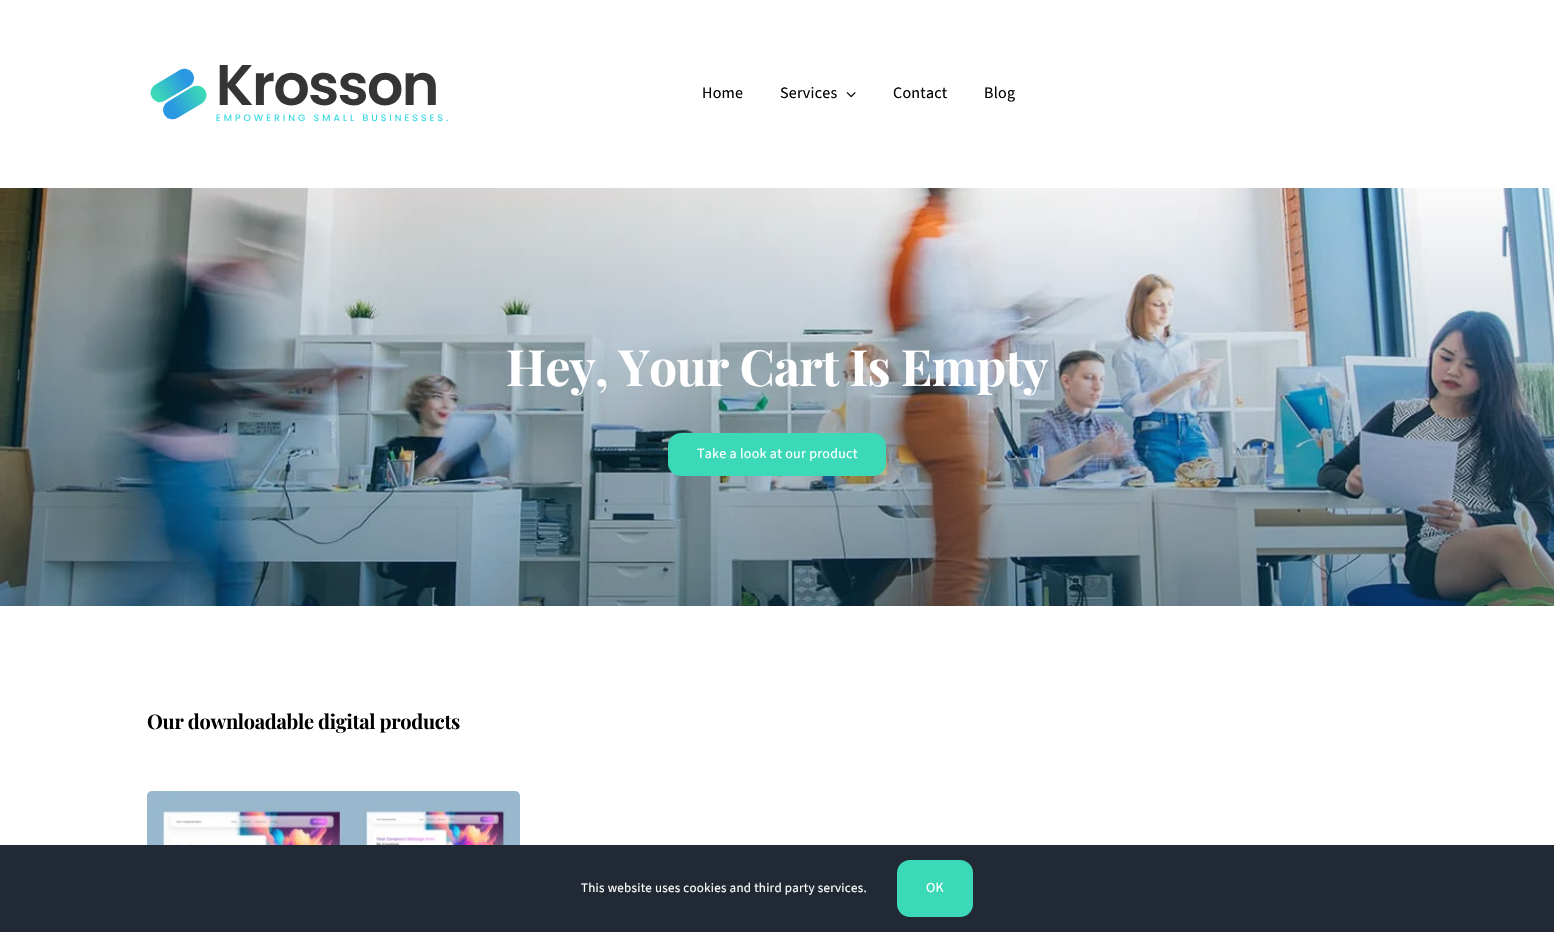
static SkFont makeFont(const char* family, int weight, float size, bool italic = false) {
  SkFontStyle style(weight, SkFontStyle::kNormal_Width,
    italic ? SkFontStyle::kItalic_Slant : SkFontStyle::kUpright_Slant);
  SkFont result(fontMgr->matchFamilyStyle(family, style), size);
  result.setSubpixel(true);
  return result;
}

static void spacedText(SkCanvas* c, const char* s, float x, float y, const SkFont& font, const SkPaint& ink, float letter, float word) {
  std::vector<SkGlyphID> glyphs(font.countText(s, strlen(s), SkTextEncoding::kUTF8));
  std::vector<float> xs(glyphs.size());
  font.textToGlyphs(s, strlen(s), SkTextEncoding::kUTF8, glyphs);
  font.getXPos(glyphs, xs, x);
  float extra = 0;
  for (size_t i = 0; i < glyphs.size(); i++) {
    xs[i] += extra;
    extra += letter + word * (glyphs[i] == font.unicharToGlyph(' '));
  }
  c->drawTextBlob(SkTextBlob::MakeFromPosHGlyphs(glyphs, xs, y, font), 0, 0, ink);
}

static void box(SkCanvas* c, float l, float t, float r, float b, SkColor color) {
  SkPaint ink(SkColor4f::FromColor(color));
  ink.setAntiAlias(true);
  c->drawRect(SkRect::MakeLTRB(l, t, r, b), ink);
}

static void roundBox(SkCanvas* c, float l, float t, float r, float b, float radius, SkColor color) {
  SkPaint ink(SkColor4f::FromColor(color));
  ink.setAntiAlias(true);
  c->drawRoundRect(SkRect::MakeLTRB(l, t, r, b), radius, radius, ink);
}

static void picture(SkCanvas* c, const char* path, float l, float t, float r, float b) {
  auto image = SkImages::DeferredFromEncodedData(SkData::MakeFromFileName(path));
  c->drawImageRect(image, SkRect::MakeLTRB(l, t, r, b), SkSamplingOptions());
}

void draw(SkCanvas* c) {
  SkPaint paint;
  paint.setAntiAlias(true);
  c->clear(0xffffffff);
  picture(c, "img_01.png", 150, 65, 448, 122);
  SkFont face1 = makeFont("Source Sans 3", 400, 16);
  paint.setColor(0xff000000);
  spacedText(c, "Home", 702, 98, face1, paint, 0.25f, 0);
  spacedText(c, "Services", 780, 98, face1, paint, 0.25f, 0);
  picture(c, "img_02.png", 846, 92, 856, 98);
  spacedText(c, "Contact", 893, 98, face1, paint, 0.25f, 0);
  spacedText(c, "Blog", 984, 98, face1, paint, 0.25f, 0);
  picture(c, "img_03.png", 0, 188, 1554, 606);
  SkFont face2 = makeFont("Playfair Display", 700, 50);
  paint.setColor(0xffffffff);
  spacedText(c, "Hey, Your Cart Is Empty", 506, 386, face2, paint, -0.75f, 0);
  roundBox(c, 668, 433, 886, 476, 13, 0xff3cd9b8);
  SkFont face3 = makeFont("Source Sans 3", 400, 14);
  spacedText(c, "Take a look at our product", 697, 458, face3, paint, 0.27f, 0);
  SkFont face4 = makeFont("Playfair Display", 700, 20);
  paint.setColor(0xff000000);
  spacedText(c, "Our downloadable digital products", 147, 729, face4, paint, -0.3f, 0);
  picture(c, "img_04.png", 147, 791, 520, 845);
  box(c, 0, 845, 1554, 932, 0xff212934);
  SkFont face5 = makeFont("Source Sans 3", 400, 13);
  paint.setColor(0xffffffff);
  spacedText(c, "This website uses cookies and third party services.", 581, 892, face5, paint, 0.27f, 0);
  roundBox(c, 897, 860, 973, 917, 13, 0xff3cd9b8);
  spacedText(c, "OK", 926, 892, face3, paint, 0.27f, 0);
}
